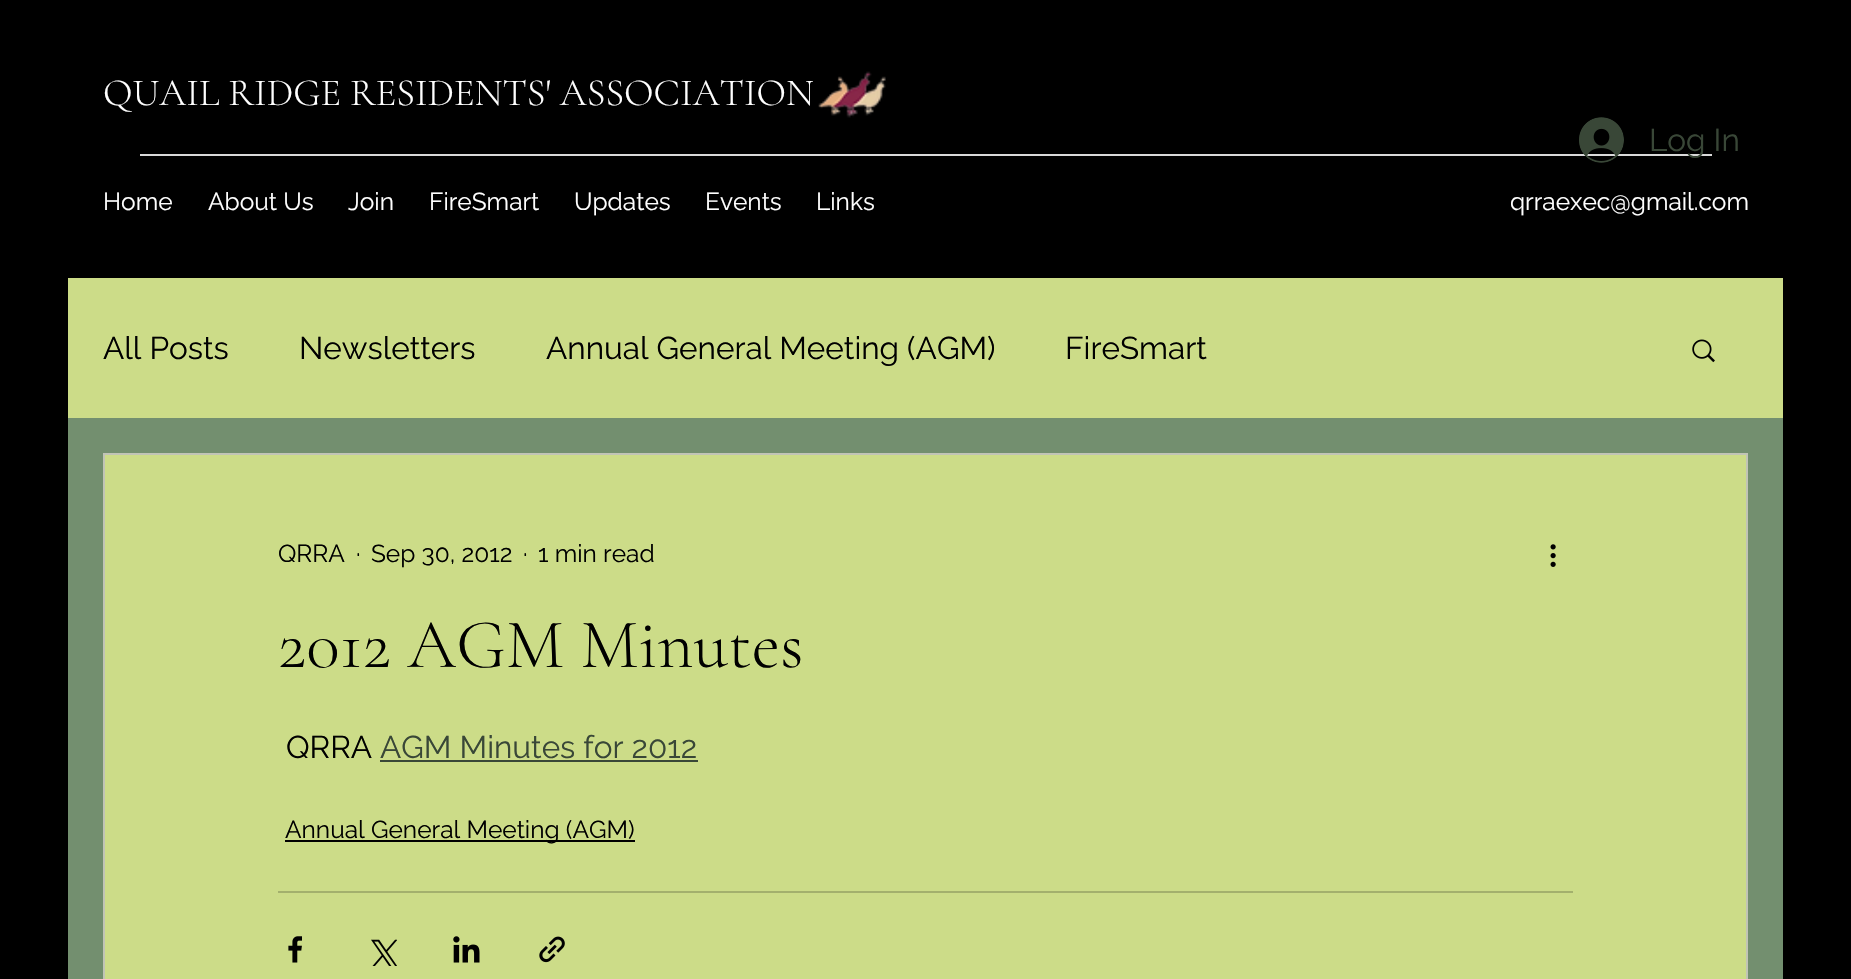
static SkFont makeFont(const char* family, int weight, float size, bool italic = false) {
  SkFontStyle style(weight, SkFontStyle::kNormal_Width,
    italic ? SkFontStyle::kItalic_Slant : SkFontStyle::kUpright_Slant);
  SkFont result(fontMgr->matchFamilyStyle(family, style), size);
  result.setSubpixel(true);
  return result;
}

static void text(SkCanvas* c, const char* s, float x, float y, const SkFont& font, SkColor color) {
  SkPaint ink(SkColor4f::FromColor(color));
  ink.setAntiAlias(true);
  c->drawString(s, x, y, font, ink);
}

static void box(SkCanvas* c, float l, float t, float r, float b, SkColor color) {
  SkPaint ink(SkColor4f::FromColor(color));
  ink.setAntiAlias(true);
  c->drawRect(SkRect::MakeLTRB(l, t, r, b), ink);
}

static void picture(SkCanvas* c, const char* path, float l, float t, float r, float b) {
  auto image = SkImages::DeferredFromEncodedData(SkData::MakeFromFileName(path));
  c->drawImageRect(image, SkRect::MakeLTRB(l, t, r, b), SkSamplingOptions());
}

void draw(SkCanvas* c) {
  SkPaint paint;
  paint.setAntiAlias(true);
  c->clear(0xff000000);
  SkFont face1 = makeFont("Cormorant Garamond", 300, 38.5f);
  text(c, "QUAIL RIDGE RESIDENTS' ASSOCIATION", 103, 105, face1, 0xffffffff);
  picture(c, "img_01.png", 818, 71, 886, 118);
  box(c, 140, 154, 1712, 156, 0xffd9d9d9);
  picture(c, "img_02.png", 1579, 117, 1624, 163);
  SkFont face2 = makeFont("Raleway", 400, 31.5f);
  text(c, "Log In", 1649, 151, face2, 0xff394737);
  SkFont face3 = makeFont("Raleway", 400, 24.5f);
  text(c, "Home", 103, 210, face3, 0xffffffff);
  text(c, "About Us", 208, 210, face3, 0xffffffff);
  text(c, "Join", 348, 210, face3, 0xffffffff);
  text(c, "FireSmart", 429, 210, face3, 0xffffffff);
  text(c, "Updates", 574, 210, face3, 0xffffffff);
  text(c, "Events", 705, 210, face3, 0xffffffff);
  text(c, "Links", 816, 210, face3, 0xffffffff);
  text(c, "qrraexec@gmail.com", 1510, 210, face3, 0xffffffff);
  box(c, 68, 418, 1783, 979, 0xff738f6f);
  box(c, 68, 278, 1783, 418, 0xffccdc88);
  text(c, "All Posts", 103, 359, face2, 0xff000000);
  text(c, "Newsletters", 299, 359, face2, 0xff000000);
  text(c, "Annual General Meeting (AGM)", 546, 359, face2, 0xff000000);
  text(c, "FireSmart", 1065, 359, face2, 0xff000000);
  picture(c, "img_03.png", 1692, 339, 1715, 363);
  paint.setColor(0xffccdc88);
  c->drawRect(SkRect::MakeLTRB(104, 454, 1747, 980), paint);
  paint.setStyle(SkPaint::kStroke_Style);
  paint.setStrokeWidth(2);
  paint.setColor(0xffc1c4b6);
  c->drawRect(SkRect::MakeLTRB(104, 454, 1747, 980), paint);
  text(c, "QRRA", 278, 562, face3, 0xff000000);
  text(c, "·", 356, 562, face3, 0xff000000);
  text(c, "Sep 30, 2012", 371, 562, face3, 0xff000000);
  text(c, "·", 523, 562, face3, 0xff000000);
  text(c, "1 min read", 538, 562, face3, 0xff000000);
  picture(c, "img_04.png", 1550, 544, 1556, 567);
  SkFont face4 = makeFont("Cormorant Garamond", 300, 70);
  text(c, "2012 AGM Minutes", 278, 667, face4, 0xff000000);
  text(c, "QRRA", 286, 758, face2, 0xff000000);
  text(c, "AGM Minutes for 2012", 380, 758, face2, 0xff394737);
  box(c, 380, 760, 698, 762, 0xff394737);
  box(c, 285, 840, 635, 842, 0xff000000);
  text(c, "Annual General Meeting (AGM)", 285, 838, face3, 0xff000000);
  box(c, 278, 891, 1573, 893, 0xffa3b06d);
  picture(c, "img_05.png", 288, 936, 302, 963);
  picture(c, "img_06.png", 371, 939, 397, 966);
  picture(c, "img_07.png", 453, 936, 480, 963);
  picture(c, "img_08.png", 539, 936, 565, 963);
}
